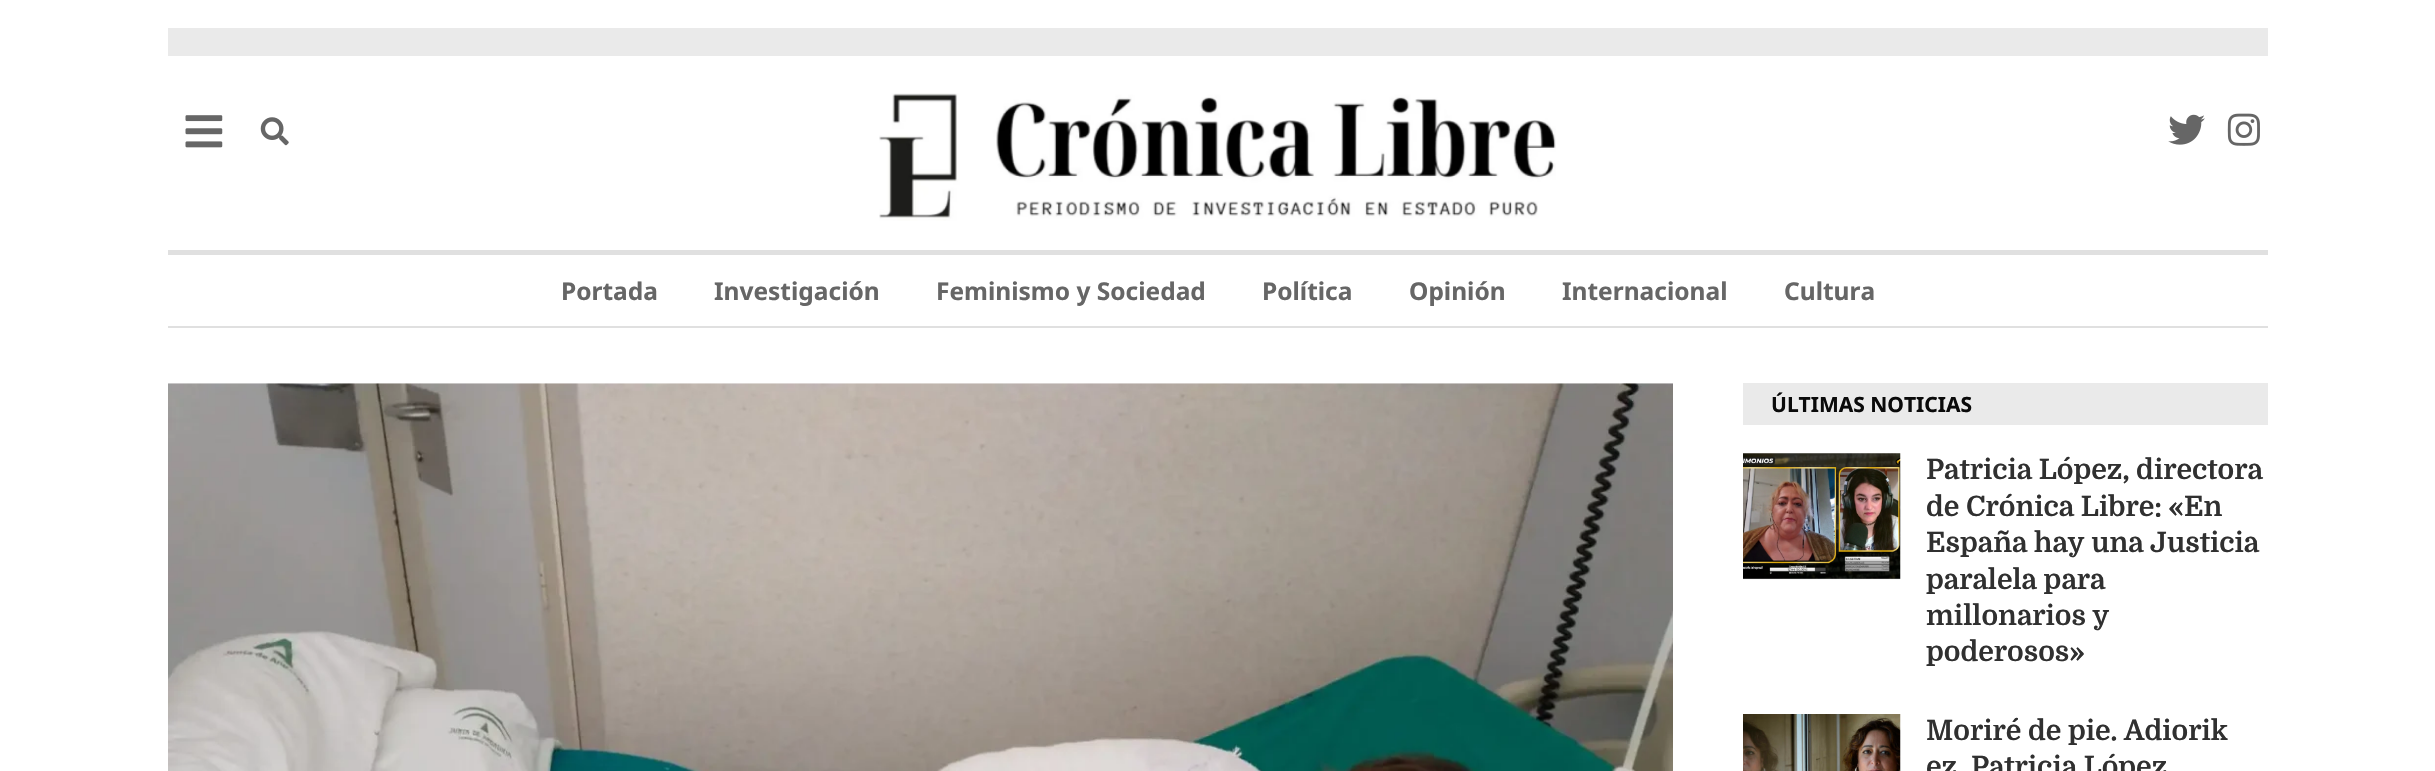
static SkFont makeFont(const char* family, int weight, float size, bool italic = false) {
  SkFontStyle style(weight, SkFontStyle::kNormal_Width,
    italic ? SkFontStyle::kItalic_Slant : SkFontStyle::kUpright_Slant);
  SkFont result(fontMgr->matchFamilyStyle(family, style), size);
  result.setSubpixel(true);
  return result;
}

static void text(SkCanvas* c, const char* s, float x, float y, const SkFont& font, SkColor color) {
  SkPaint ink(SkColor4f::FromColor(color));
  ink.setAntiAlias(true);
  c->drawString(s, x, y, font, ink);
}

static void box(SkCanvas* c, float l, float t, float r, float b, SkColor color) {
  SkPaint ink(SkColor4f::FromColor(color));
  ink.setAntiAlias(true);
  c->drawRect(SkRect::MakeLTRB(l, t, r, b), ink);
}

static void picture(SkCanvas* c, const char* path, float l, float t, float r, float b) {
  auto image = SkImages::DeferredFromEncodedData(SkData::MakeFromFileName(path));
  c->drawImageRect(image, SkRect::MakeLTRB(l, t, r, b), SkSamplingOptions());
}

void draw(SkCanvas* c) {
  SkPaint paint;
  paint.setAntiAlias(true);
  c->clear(0xffffffff);
  box(c, 168, 28, 2268, 56, 0xffeaeaea);
  picture(c, "img_01.png", 185, 115, 223, 148);
  picture(c, "img_02.png", 260, 117, 289, 146);
  picture(c, "img_03.png", 879, 93, 1556, 221);
  picture(c, "img_04.png", 2168, 114, 2205, 145);
  picture(c, "img_05.png", 2227, 113, 2260, 146);
  box(c, 168, 250, 2268, 255, 0xffe0e0e0);
  box(c, 168, 326, 2268, 328, 0xffe0e0e0);
  SkFont face1 = makeFont("Noto Sans", 700, 24.5f);
  text(c, "Portada", 561, 300, face1, 0xff666666);
  text(c, "Investigación", 714, 300, face1, 0xff666666);
  text(c, "Feminismo y Sociedad", 936, 300, face1, 0xff666666);
  text(c, "Política", 1262, 300, face1, 0xff666666);
  text(c, "Opinión", 1409, 300, face1, 0xff666666);
  text(c, "Internacional", 1562, 300, face1, 0xff666666);
  text(c, "Cultura", 1784, 300, face1, 0xff666666);
  picture(c, "img_06.png", 168, 383, 1673, 771);
  box(c, 1743, 383, 2268, 425, 0xffeaeaea);
  SkFont face2 = makeFont("Noto Sans", 700, 21);
  text(c, "ÚLTIMAS NOTICIAS", 1771, 412, face2, 0xff0a0a0a);
  picture(c, "img_07.png", 1743, 453, 1901, 580);
  SkFont face3 = makeFont("Domine", 700, 28);
  text(c, "Patricia López, directora", 1926, 479, face3, 0xff303030);
  text(c, "de Crónica Libre: «En", 1926, 516, face3, 0xff303030);
  text(c, "España hay una Justicia", 1926, 552, face3, 0xff303030);
  text(c, "paralela para", 1926, 589, face3, 0xff303030);
  text(c, "millonarios y", 1926, 625, face3, 0xff303030);
  text(c, "poderosos»", 1926, 661, face3, 0xff303030);
  picture(c, "img_08.png", 1743, 714, 1901, 771);
  text(c, "Moriré de pie. Adiorik", 1926, 740, face3, 0xff303030);
  text(c, "ez, Patricia López", 1926, 776, face3, 0xff303030);
}
